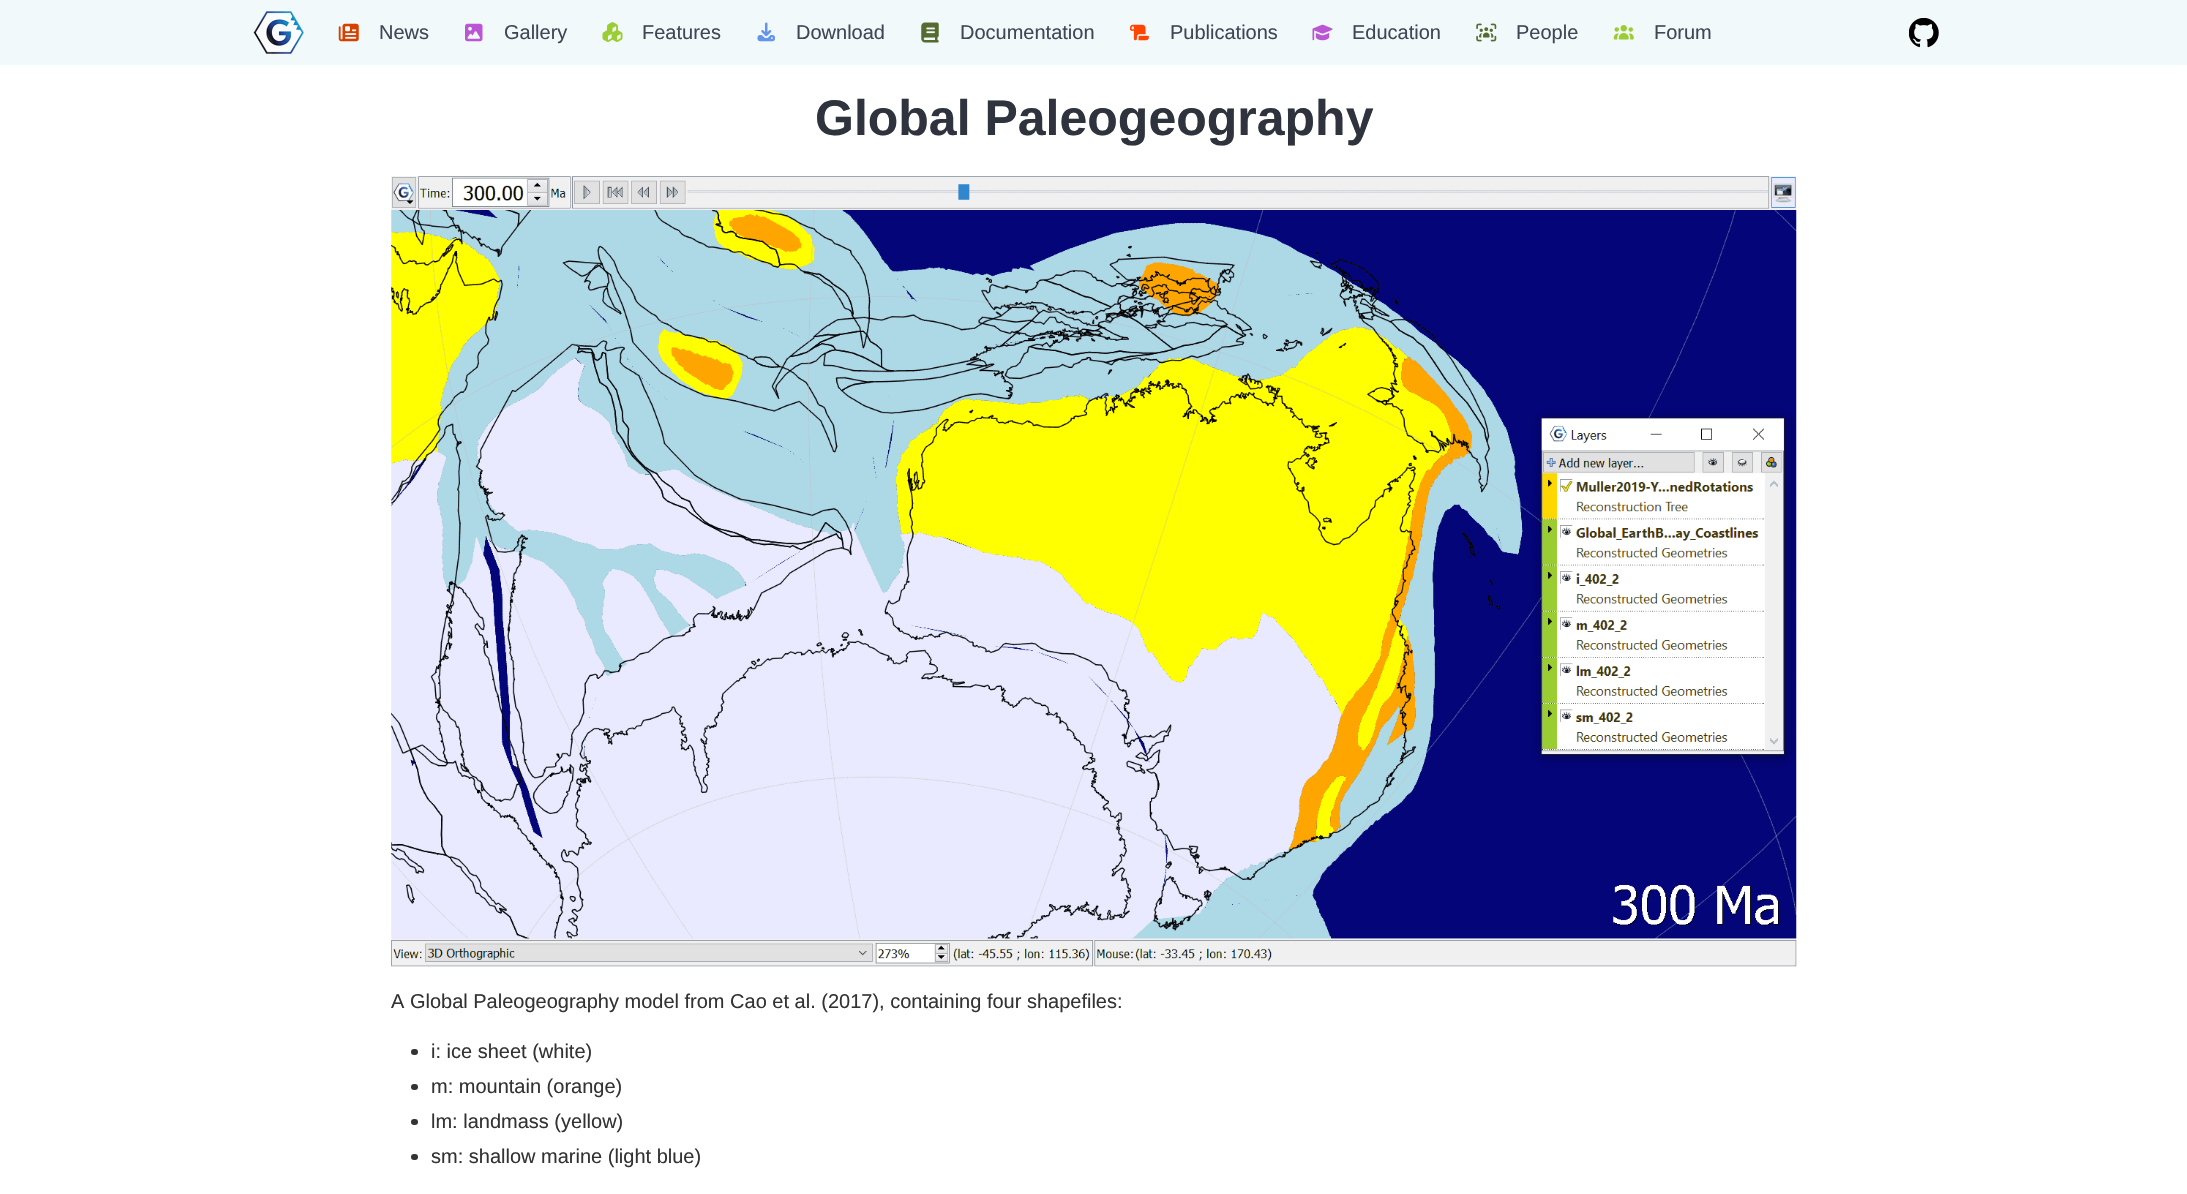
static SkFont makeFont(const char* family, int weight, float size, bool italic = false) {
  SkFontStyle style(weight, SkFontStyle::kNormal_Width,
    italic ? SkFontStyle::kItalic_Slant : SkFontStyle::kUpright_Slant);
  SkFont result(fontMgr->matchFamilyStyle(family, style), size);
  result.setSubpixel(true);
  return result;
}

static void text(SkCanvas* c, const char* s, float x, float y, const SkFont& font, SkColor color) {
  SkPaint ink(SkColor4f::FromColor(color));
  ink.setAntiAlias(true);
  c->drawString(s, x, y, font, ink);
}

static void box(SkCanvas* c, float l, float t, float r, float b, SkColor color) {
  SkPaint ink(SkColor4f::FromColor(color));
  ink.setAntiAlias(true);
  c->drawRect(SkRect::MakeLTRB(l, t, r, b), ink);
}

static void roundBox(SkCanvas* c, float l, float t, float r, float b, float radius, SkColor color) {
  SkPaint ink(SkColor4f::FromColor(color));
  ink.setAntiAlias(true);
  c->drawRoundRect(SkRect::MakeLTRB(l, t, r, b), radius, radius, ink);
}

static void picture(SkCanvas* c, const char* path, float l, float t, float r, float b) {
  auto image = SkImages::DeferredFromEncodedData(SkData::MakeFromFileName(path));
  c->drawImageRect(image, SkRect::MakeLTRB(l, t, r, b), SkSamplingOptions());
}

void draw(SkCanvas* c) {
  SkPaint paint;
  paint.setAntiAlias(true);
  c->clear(0xffffffff);
  box(c, 0, 0, 2187, 65, 0xfff2f9fb);
  picture(c, "img_01.png", 253, 11, 304, 54);
  picture(c, "img_02.png", 338, 23, 359, 42);
  SkFont face1 = makeFont("Liberation Sans", 400, 20);
  text(c, "News", 379, 39, face1, 0xff404654);
  picture(c, "img_03.png", 465, 23, 483, 42);
  text(c, "Gallery", 504, 39, face1, 0xff404654);
  picture(c, "img_04.png", 602, 22, 623, 42);
  text(c, "Features", 642, 39, face1, 0xff404654);
  picture(c, "img_05.png", 757, 22, 775, 42);
  text(c, "Download", 796, 39, face1, 0xff404654);
  picture(c, "img_06.png", 921, 22, 939, 43);
  text(c, "Documentation", 960, 39, face1, 0xff404654);
  picture(c, "img_07.png", 1130, 24, 1149, 41);
  text(c, "Publications", 1170, 39, face1, 0xff404654);
  picture(c, "img_08.png", 1312, 24, 1333, 41);
  text(c, "Education", 1352, 39, face1, 0xff404654);
  picture(c, "img_09.png", 1476, 23, 1497, 42);
  text(c, "People", 1516, 39, face1, 0xff404654);
  picture(c, "img_10.png", 1613, 25, 1634, 40);
  text(c, "Forum", 1654, 39, face1, 0xff404654);
  picture(c, "img_11.png", 1909, 18, 1939, 48);
  SkFont face2 = makeFont("Liberation Sans", 700, 50);
  text(c, "Global Paleogeography", 815, 135, face2, 0xff2e333d);
  picture(c, "img_12.png", 391, 176, 1797, 967);
  text(c, "A Global Paleogeography model from Cao et al. (2017), containing four shapefiles:", 391, 1008, face1, 0xff333333);
  roundBox(c, 411, 1049, 418, 1055, 3, 0xff333333);
  text(c, "i: ice sheet (white)", 431, 1058, face1, 0xff333333);
  roundBox(c, 411, 1084, 418, 1090, 3, 0xff333333);
  text(c, "m: mountain (orange)", 431, 1093, face1, 0xff333333);
  roundBox(c, 411, 1119, 418, 1125, 3, 0xff333333);
  text(c, "lm: landmass (yellow)", 431, 1128, face1, 0xff333333);
  roundBox(c, 411, 1154, 418, 1160, 3, 0xff333333);
  text(c, "sm: shallow marine (light blue)", 431, 1163, face1, 0xff333333);
}
